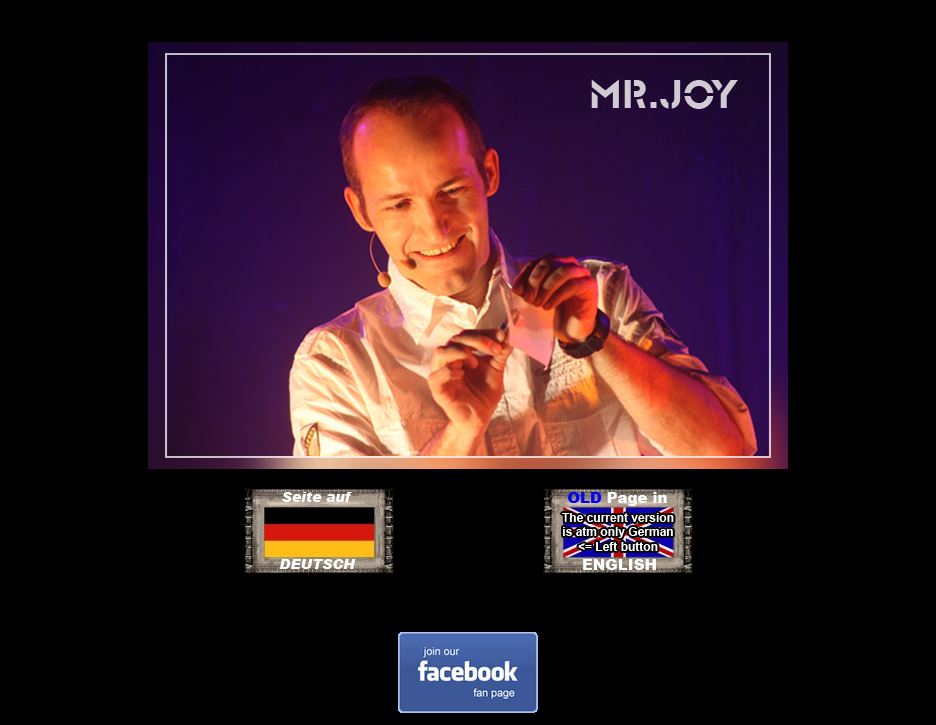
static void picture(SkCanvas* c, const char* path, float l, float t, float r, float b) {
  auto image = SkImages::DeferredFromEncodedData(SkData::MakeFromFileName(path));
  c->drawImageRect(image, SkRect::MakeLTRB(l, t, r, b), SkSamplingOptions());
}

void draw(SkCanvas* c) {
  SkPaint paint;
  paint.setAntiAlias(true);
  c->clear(0xff000000);
  picture(c, "img_01.png", 148, 42, 788, 469);
  picture(c, "img_02.png", 244, 488, 394, 574);
  picture(c, "img_03.png", 543, 488, 693, 574);
  picture(c, "img_04.png", 398, 632, 538, 713);
}
